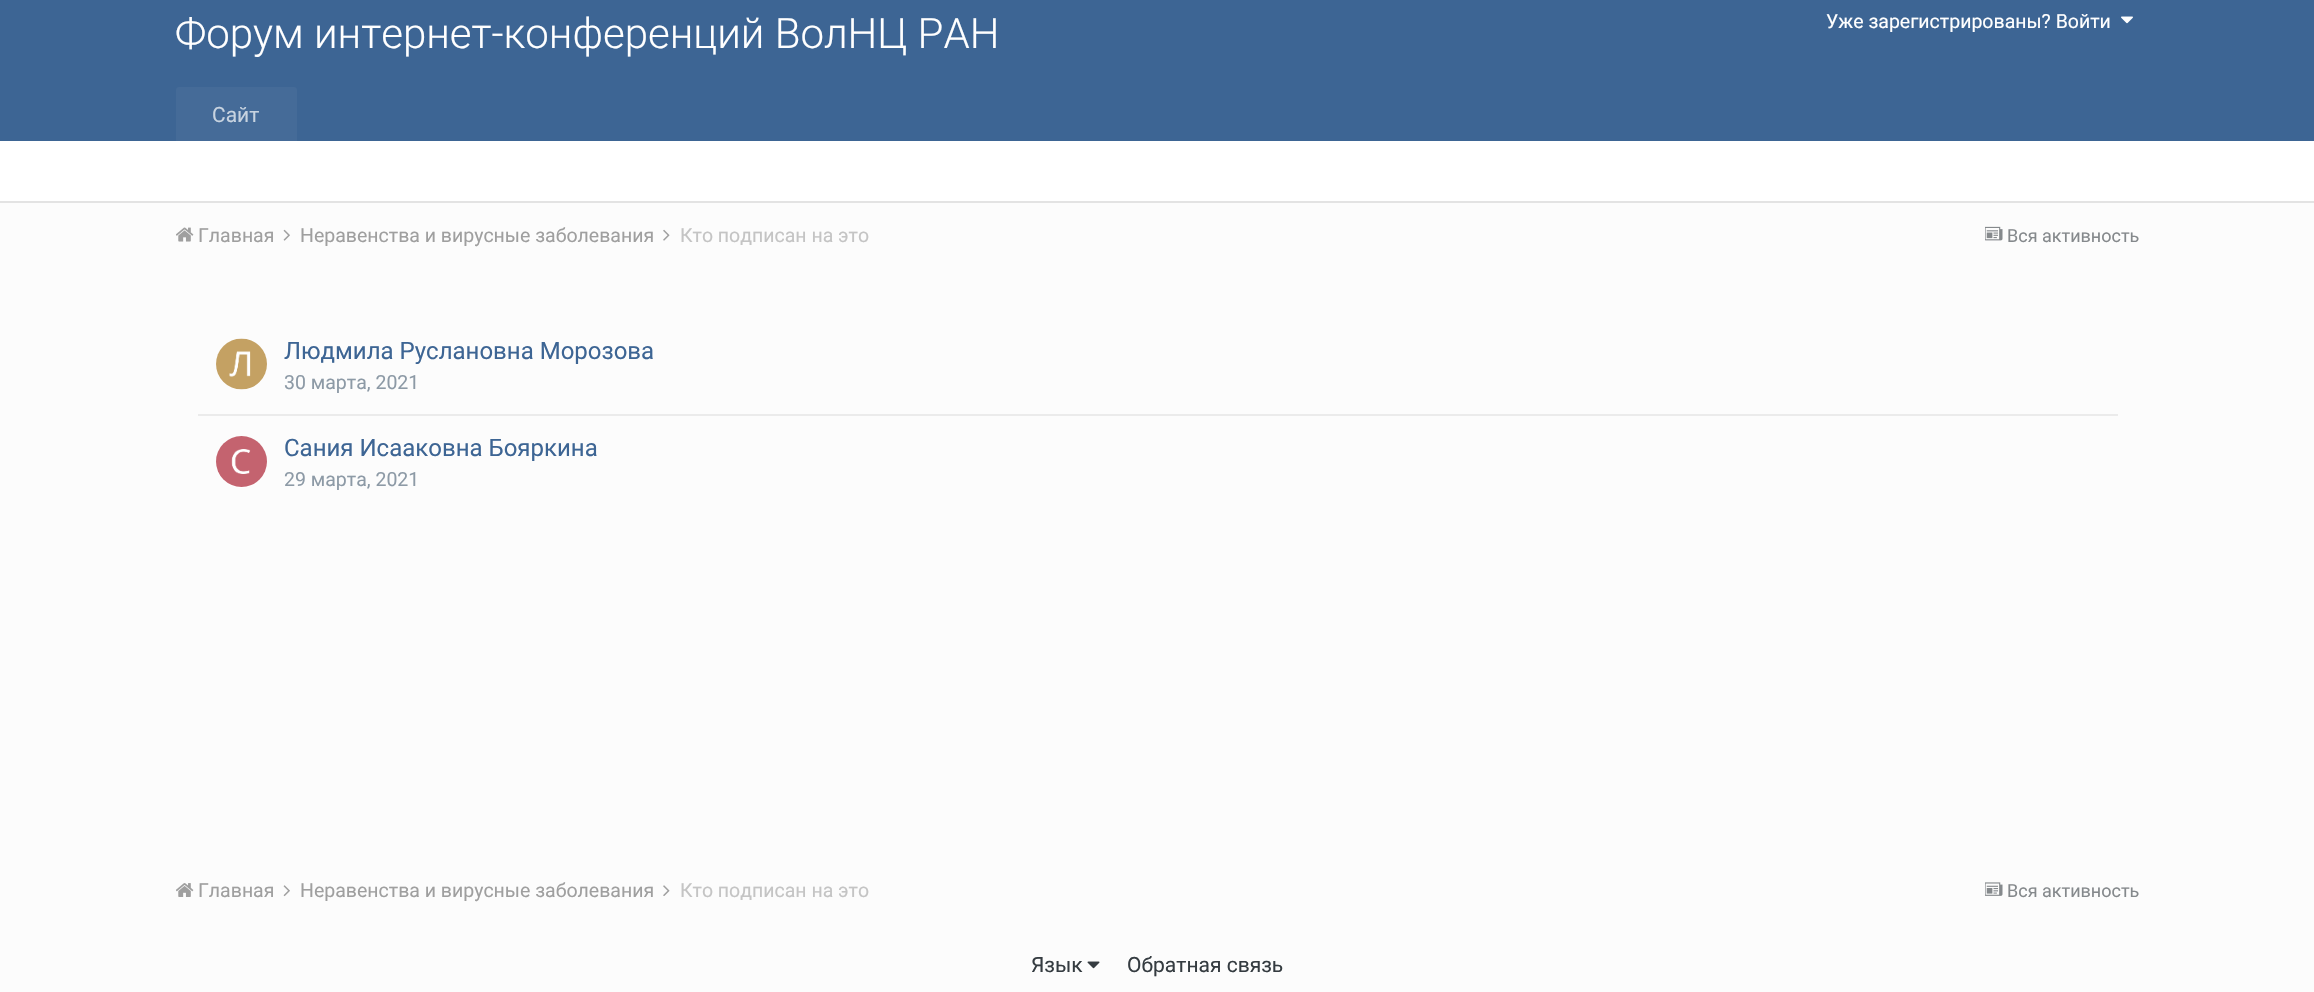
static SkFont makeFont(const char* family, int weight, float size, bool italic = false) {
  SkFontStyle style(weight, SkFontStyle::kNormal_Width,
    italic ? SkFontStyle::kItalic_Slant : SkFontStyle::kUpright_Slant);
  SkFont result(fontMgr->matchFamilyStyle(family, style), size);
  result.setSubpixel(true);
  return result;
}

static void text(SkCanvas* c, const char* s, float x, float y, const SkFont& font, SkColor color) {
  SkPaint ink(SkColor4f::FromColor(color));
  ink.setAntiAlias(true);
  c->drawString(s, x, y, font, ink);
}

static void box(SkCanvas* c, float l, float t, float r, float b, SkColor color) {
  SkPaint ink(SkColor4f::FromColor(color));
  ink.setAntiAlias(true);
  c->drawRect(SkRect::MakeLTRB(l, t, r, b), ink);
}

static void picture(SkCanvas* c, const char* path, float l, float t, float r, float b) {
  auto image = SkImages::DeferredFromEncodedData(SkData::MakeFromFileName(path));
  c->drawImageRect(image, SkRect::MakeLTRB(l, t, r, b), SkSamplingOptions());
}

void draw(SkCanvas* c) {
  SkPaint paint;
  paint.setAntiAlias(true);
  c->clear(0xfffcfcfc);
  box(c, 0, 201, 2314, 203, 0xffe3e3e3);
  box(c, 0, 0, 2314, 141, 0xff3d6594);
  SkFont face1 = makeFont("Roboto", 300, 42);
  text(c, "Форум интернет-конференций ВолНЦ РАН", 175, 48, face1, 0xffffffff);
  SkFont face2 = makeFont("Roboto", 400, 19.5f);
  text(c, "Уже зарегистрированы? Войти", 1826, 28, face2, 0xffffffff);
  picture(c, "img_01.png", 2121, 16, 2133, 24);
  box(c, 0, 141, 2314, 201, 0xffffffff);
  paint.setColor(0xff456b98);
  c->drawPath(SkPathBuilder().moveTo(179, 87).lineTo(294, 87).cubicTo(295.5f, 87, 297, 88.5f, 297, 90).lineTo(297, 141).lineTo(176, 141).lineTo(176, 90).cubicTo(176, 88.5f, 177.5f, 87, 179, 87).close().detach(), paint);
  SkFont face3 = makeFont("Roboto", 400, 21);
  text(c, "Сайт", 212, 122, face3, 0xffc7d3e0);
  picture(c, "img_02.png", 176, 227, 194, 242);
  text(c, "Главная", 198, 242, face2, 0xff9f9f9f);
  picture(c, "img_03.png", 283, 229, 290, 241);
  text(c, "Неравенства и вирусные заболевания", 300, 242, face2, 0xff9f9f9f);
  picture(c, "img_04.png", 663, 229, 670, 241);
  text(c, "Кто подписан на это", 680, 242, face2, 0xffc4c4c4);
  picture(c, "img_05.png", 1985, 226, 2003, 241);
  SkFont face4 = makeFont("Roboto", 400, 18);
  text(c, "Вся активность", 2007, 242, face4, 0xff85898c);
  box(c, 198, 414, 2118, 416, 0xffebebeb);
  paint.setColor(0xffffffff);
  c->drawCircle(241.5f, 364.5f, 25.5f, paint);
  picture(c, "img_06.png", 216, 338, 267, 390);
  SkFont face5 = makeFont("Roboto", 400, 24);
  text(c, "Людмила Руслановна Морозова", 284, 359, face5, 0xff3d6594);
  text(c, "30 марта, 2021", 284, 389, face2, 0xff8d9aa6);
  c->drawCircle(241.5f, 462.5f, 25.5f, paint);
  picture(c, "img_07.png", 216, 436, 267, 487);
  text(c, "Сания Исааковна Бояркина", 284, 456, face5, 0xff3d6594);
  text(c, "29 марта, 2021", 284, 486, face2, 0xff8d9aa6);
  picture(c, "img_08.png", 176, 883, 194, 897);
  text(c, "Главная", 198, 897, face2, 0xff9f9f9f);
  picture(c, "img_09.png", 283, 885, 290, 897);
  text(c, "Неравенства и вирусные заболевания", 300, 897, face2, 0xff9f9f9f);
  picture(c, "img_10.png", 663, 885, 670, 896);
  text(c, "Кто подписан на это", 680, 897, face2, 0xffc4c4c4);
  picture(c, "img_11.png", 1985, 882, 2003, 896);
  text(c, "Вся активность", 2007, 897, face4, 0xff85898c);
  text(c, "Язык", 1031, 972, face3, 0xff353c41);
  picture(c, "img_12.png", 1087, 961, 1100, 969);
  text(c, "Обратная связь", 1127, 972, face3, 0xff353c41);
}
